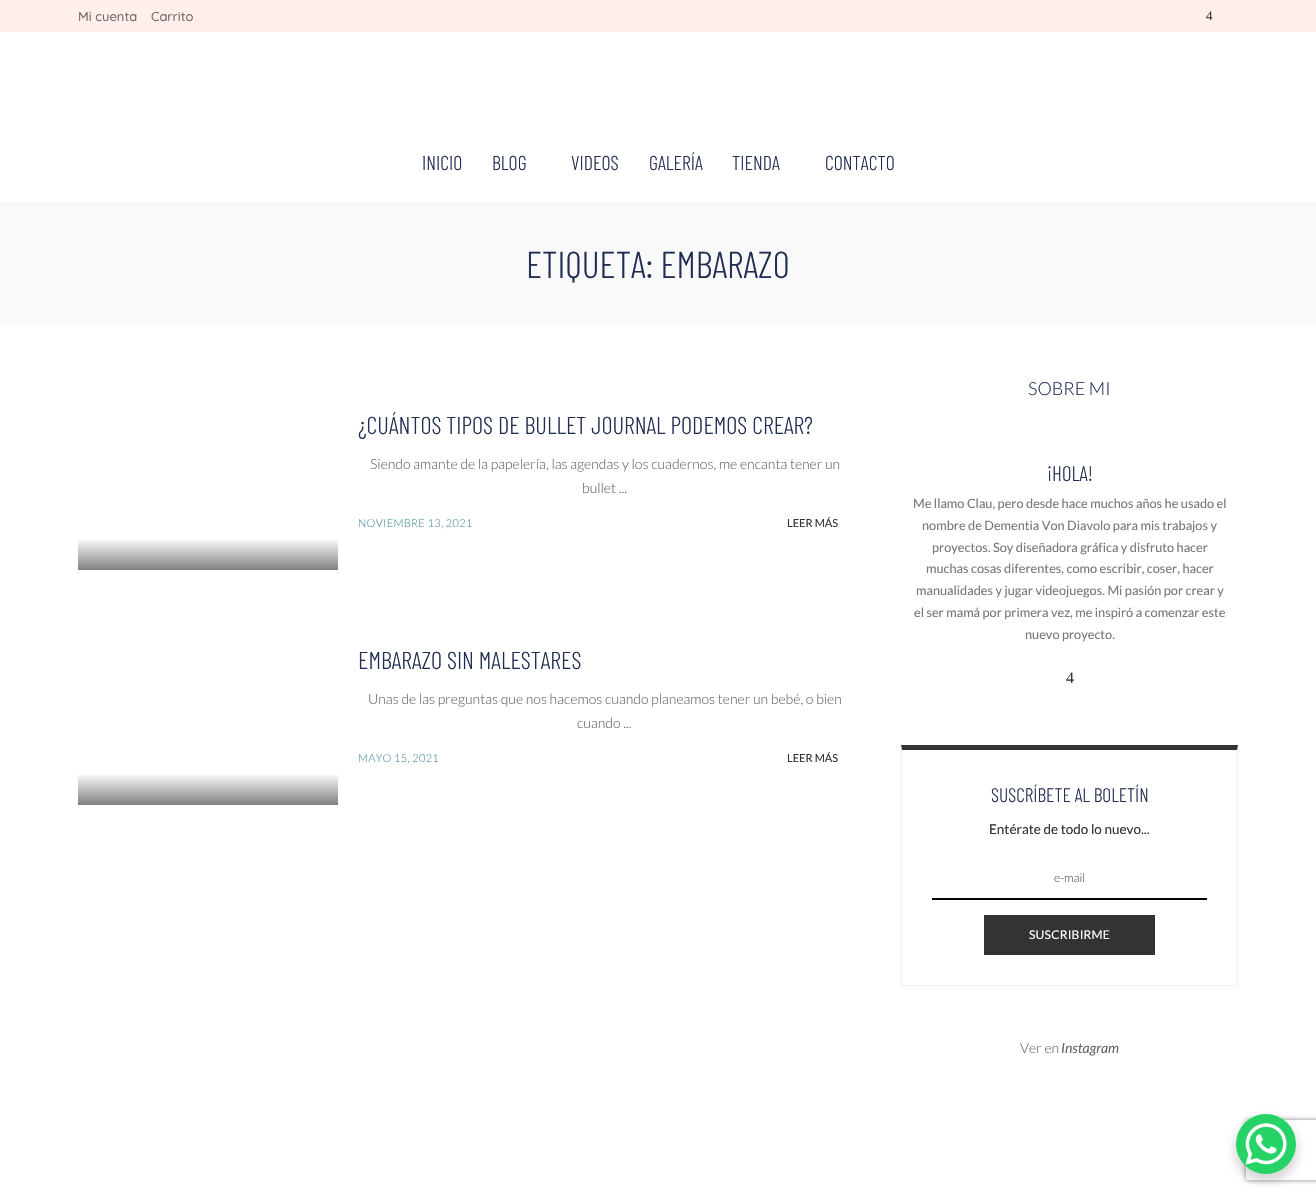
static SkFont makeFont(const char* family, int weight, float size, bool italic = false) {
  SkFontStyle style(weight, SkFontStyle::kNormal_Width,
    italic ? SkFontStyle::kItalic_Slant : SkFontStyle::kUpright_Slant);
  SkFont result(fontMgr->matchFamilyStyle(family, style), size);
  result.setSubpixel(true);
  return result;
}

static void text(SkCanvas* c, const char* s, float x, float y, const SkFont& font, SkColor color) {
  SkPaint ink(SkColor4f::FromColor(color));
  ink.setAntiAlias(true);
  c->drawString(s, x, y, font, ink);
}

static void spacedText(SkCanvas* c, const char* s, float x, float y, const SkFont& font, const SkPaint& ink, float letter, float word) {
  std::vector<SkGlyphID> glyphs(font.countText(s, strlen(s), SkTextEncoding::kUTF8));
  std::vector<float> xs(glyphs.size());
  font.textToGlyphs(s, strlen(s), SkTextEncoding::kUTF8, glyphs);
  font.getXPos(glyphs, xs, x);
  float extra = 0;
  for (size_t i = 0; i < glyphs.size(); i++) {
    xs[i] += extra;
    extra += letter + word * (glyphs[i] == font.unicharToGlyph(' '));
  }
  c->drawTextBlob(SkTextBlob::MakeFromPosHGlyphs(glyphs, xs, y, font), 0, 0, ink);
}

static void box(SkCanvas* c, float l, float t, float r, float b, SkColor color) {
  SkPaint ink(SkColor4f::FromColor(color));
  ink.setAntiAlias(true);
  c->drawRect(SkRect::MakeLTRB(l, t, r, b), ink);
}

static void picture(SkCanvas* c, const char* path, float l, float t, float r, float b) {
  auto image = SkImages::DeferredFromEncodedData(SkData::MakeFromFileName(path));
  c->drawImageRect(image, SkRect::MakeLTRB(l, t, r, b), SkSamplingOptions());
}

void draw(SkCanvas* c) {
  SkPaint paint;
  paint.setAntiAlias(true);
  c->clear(0xffffffff);
  box(c, 0, 0, 1316, 32, 0xffffeeeb);
  SkFont face1 = makeFont("Quicksand", 500, 13);
  text(c, "Mi cuenta", 78, 21, face1, 0xff706b6a);
  text(c, "Carrito", 151, 21, face1, 0xff706b6a);
  SkFont face2 = makeFont("Liberation Serif", 400, 13);
  text(c, "4", 1206, 20, face2, 0xff333333);
  SkFont face3 = makeFont("Barlow Condensed", 300, 20);
  text(c, "INICIO", 422, 170, face3, 0xff212e53);
  text(c, "BLOG", 492, 170, face3, 0xff212e53);
  text(c, "VIDEOS", 571, 170, face3, 0xff212e53);
  text(c, "GALERÍA", 649, 170, face3, 0xff212e53);
  text(c, "TIENDA", 732, 170, face3, 0xff212e53);
  text(c, "CONTACTO", 825, 170, face3, 0xff212e53);
  box(c, 0, 202, 1316, 325, 0xfff9f9f9);
  SkFont face4 = makeFont("Barlow Condensed", 300, 37.5f);
  text(c, "ETIQUETA: EMBARAZO", 526, 278, face4, 0xff212e53);
  SkFont face5 = makeFont("Barlow Condensed", 300, 24.4f);
  text(c, "¿CUÁNTOS TIPOS DE BULLET JOURNAL PODEMOS CREAR?", 358, 434, face5, 0xff212e53);
  SkFont face6 = makeFont("Lato", 300, 14);
  text(c, "Siendo amante de la papelería, las agendas y los cuadernos, me encanta tener un", 370, 469, face6, 0xff666666);
  text(c, "bullet ...", 582, 493, face6, 0xff666666);
  SkFont face7 = makeFont("Lato", 300, 11);
  paint.setColor(0xff4a919e);
  spacedText(c, "NOVIEMBRE 13, 2021", 358, 527, face7, paint, 0.3f, 0);
  SkFont face8 = makeFont("Lato", 400, 11);
  text(c, "LEER MÁS", 787, 527, face8, 0xff333333);
  {
    const SkColor colors[] = {0xffffffff, 0xff808080};
    const float stops[] = {0, 1};
    const SkPoint ends[] = {{208, 538}, {208, 570}};
    paint.setShader(SkGradientShader::MakeLinear(ends, colors, stops, 2, SkTileMode::kClamp));
    paint.setAlpha(255);
  }
  c->drawRect(SkRect::MakeLTRB(78, 539, 338, 570), paint);
  text(c, "EMBARAZO SIN MALESTARES", 358, 669, face5, 0xff212e53);
  text(c, "Unas de las preguntas que nos hacemos cuando planeamos tener un bebé, o bien", 368, 704, face6, 0xff666666);
  text(c, "cuando ...", 577, 728, face6, 0xff666666);
  paint.setShader(nullptr);
  paint.setColor(0xff4a919e);
  spacedText(c, "MAYO 15, 2021", 358, 762, face7, paint, 0.3f, 0);
  text(c, "LEER MÁS", 787, 762, face8, 0xff333333);
  {
    const SkColor colors[] = {0xffffffff, 0xff808080};
    const float stops[] = {0, 1};
    const SkPoint ends[] = {{208, 773}, {208, 805}};
    paint.setShader(SkGradientShader::MakeLinear(ends, colors, stops, 2, SkTileMode::kClamp));
    paint.setAlpha(255);
  }
  c->drawRect(SkRect::MakeLTRB(78, 774, 338, 805), paint);
  SkFont face9 = makeFont("Lato", 300, 18);
  text(c, "SOBRE MI", 1028, 395, face9, 0xff212e53);
  SkFont face10 = makeFont("Barlow Condensed", 300, 21);
  text(c, "¡HOLA!", 1047, 481, face10, 0xff212e53);
  SkFont face11 = makeFont("Lato", 400, 12.75f);
  text(c, "Me llamo Clau, pero desde hace muchos años he usado el", 913, 508, face11, 0xff777777);
  text(c, "nombre de Dementia Von Diavolo para mis trabajos y", 922, 530, face11, 0xff777777);
  text(c, "proyectos. Soy diseñadora gráfica y disfruto hacer", 932, 552, face11, 0xff777777);
  text(c, "muchas cosas diferentes, como escribir, coser, hacer", 926, 573, face11, 0xff777777);
  text(c, "manualidades y jugar videojuegos. Mi pasión por crear y", 916, 595, face11, 0xff777777);
  text(c, "el ser mamá por primera vez, me inspiró a comenzar este", 914, 617, face11, 0xff777777);
  text(c, "nuevo proyecto.", 1025, 639, face11, 0xff777777);
  SkFont face12 = makeFont("Liberation Serif", 400, 16);
  text(c, "4", 1066, 683, face12, 0xff333333);
  paint.setShader(nullptr);
  paint.setColor(0xff333333);
  c->drawPath(SkPathBuilder().moveTo(901, 745).lineTo(1238, 745).lineTo(1237, 750).lineTo(902, 750).close().detach(), paint);
  paint.setColor(0x21888888);
  c->drawPath(SkPathBuilder().moveTo(1238, 745).lineTo(1238, 986).lineTo(1237, 985).lineTo(1237, 750).close().detach(), paint);
  c->drawPath(SkPathBuilder().moveTo(1238, 986).lineTo(901, 986).lineTo(902, 985).lineTo(1237, 985).close().detach(), paint);
  c->drawPath(SkPathBuilder().moveTo(901, 986).lineTo(901, 745).lineTo(902, 750).lineTo(902, 985).close().detach(), paint);
  SkFont face13 = makeFont("Barlow Condensed", 300, 19.5f);
  text(c, "SUSCRÍBETE AL BOLETÍN", 991, 802, face13, 0xff212e53);
  SkFont face14 = makeFont("Lato", 400, 13.5f);
  text(c, "Entérate de todo lo nuevo...", 989, 834, face14, 0xff333333);
  box(c, 932, 898, 1207, 900, 0xff000000);
  SkFont face15 = makeFont("Lato", 300, 12);
  text(c, "e-mail", 1054, 882, face15, 0xff4d4d4d);
  box(c, 984, 915, 1155, 955, 0xff333333);
  SkFont face16 = makeFont("Lato", 400, 12);
  paint.setColor(0xffffffff);
  spacedText(c, "SUSCRIBIRME", 1029, 939, face16, paint, 0.25f, 0);
  text(c, "Ver en", 1020, 1053, face6, 0xff666666);
  SkFont face17 = makeFont("Lato", 400, 14, true);
  text(c, "Instagram", 1061, 1053, face17, 0xff666666);
  paint.setColor(0x26000000);
  paint.setMaskFilter(SkMaskFilter::MakeBlur(kNormal_SkBlurStyle, 4));
  c->drawRoundRect(SkRect::MakeLTRB(1234, 1118, 1298, 1182), 32, 32, paint);
  paint.setMaskFilter(nullptr);
  c->save();
  c->clipPath(SkPathBuilder(SkPathFillType::kEvenOdd).moveTo(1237, 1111).lineTo(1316, 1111).lineTo(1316, 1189).lineTo(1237, 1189).close().moveTo(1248, 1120).lineTo(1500, 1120).cubicTo(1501, 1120, 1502, 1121, 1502, 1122).lineTo(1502, 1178).cubicTo(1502, 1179, 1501, 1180, 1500, 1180).lineTo(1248, 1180).cubicTo(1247, 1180, 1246, 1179, 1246, 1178).lineTo(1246, 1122).cubicTo(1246, 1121, 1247, 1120, 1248, 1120).close().detach(), true);
  paint.setColor(0xff808080);
  paint.setMaskFilter(SkMaskFilter::MakeBlur(kNormal_SkBlurStyle, 2.5f));
  c->drawRoundRect(SkRect::MakeLTRB(1246, 1120, 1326, 1180), 2, 2, paint);
  paint.setMaskFilter(nullptr);
  c->restore();
  paint.setColor(0xff25d366);
  c->drawCircle(1266, 1144, 30, paint);
  picture(c, "img_01.png", 1245, 1123, 1287, 1165);
}
